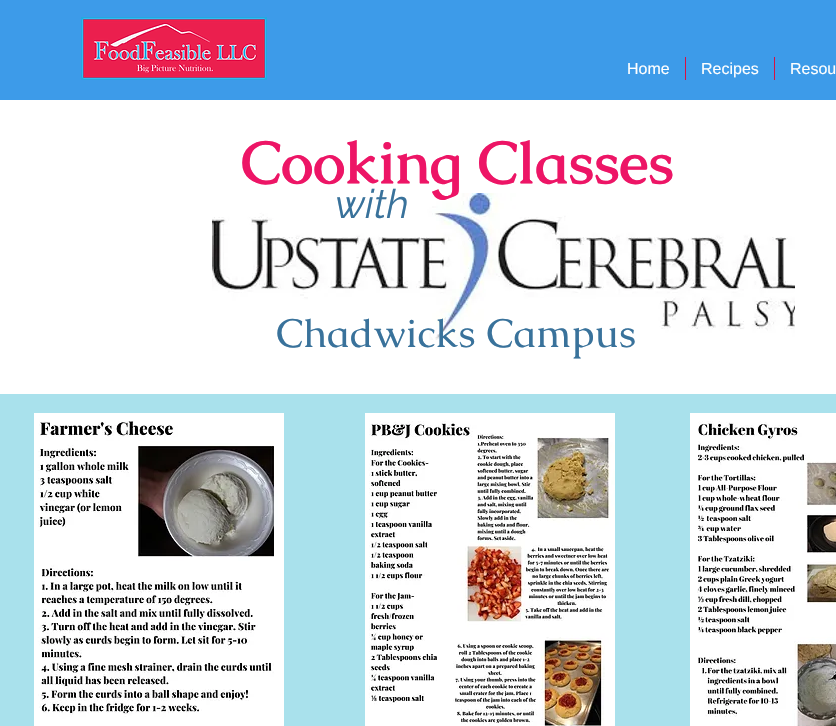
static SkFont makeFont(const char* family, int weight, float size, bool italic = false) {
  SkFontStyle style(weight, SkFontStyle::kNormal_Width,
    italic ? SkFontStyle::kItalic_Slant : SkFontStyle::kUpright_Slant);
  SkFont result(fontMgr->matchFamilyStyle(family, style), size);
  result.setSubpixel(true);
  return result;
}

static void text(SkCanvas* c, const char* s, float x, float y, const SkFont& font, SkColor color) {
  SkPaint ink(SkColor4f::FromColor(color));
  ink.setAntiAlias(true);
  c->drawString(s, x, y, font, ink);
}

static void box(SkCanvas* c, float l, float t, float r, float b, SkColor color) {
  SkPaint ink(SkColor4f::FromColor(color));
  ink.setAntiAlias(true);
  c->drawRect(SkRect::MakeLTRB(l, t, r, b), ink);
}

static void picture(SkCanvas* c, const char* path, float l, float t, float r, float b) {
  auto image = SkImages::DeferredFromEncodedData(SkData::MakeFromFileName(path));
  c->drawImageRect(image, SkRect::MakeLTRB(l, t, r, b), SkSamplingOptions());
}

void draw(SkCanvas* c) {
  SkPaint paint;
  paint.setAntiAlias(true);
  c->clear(0xffffffff);
  box(c, 0, 0, 836, 100, 0xff3d9be9);
  picture(c, "img_01.png", 81, 17, 267, 80);
  SkFont face1 = makeFont("Liberation Sans", 400, 16);
  text(c, "Home", 627, 74, face1, 0xffffffff);
  box(c, 685, 57, 686, 80, 0xffd61043);
  text(c, "Recipes", 701, 74, face1, 0xffffffff);
  box(c, 774, 57, 775, 80, 0xffd61043);
  text(c, "Resou", 790, 74, face1, 0xffffffff);
  picture(c, "img_02.png", 212, 193, 795, 340);
  SkFont face2 = makeFont("Caudex", 700, 59);
  text(c, "Cooking Classes", 241, 183, face2, 0xffed1566);
  SkFont face3 = makeFont("Raleway", 400, 40, true);
  text(c, "with", 335, 218, face3, 0xff39729b);
  SkFont face4 = makeFont("Caudex", 400, 40);
  text(c, "Chadwicks Campus", 276, 347, face4, 0xff39729b);
  box(c, 0, 394, 836, 726, 0xffa9e1ec);
  picture(c, "img_03.png", 34, 413, 284, 726);
  picture(c, "img_04.png", 365, 413, 615, 726);
  picture(c, "img_05.png", 690, 413, 836, 726);
}
